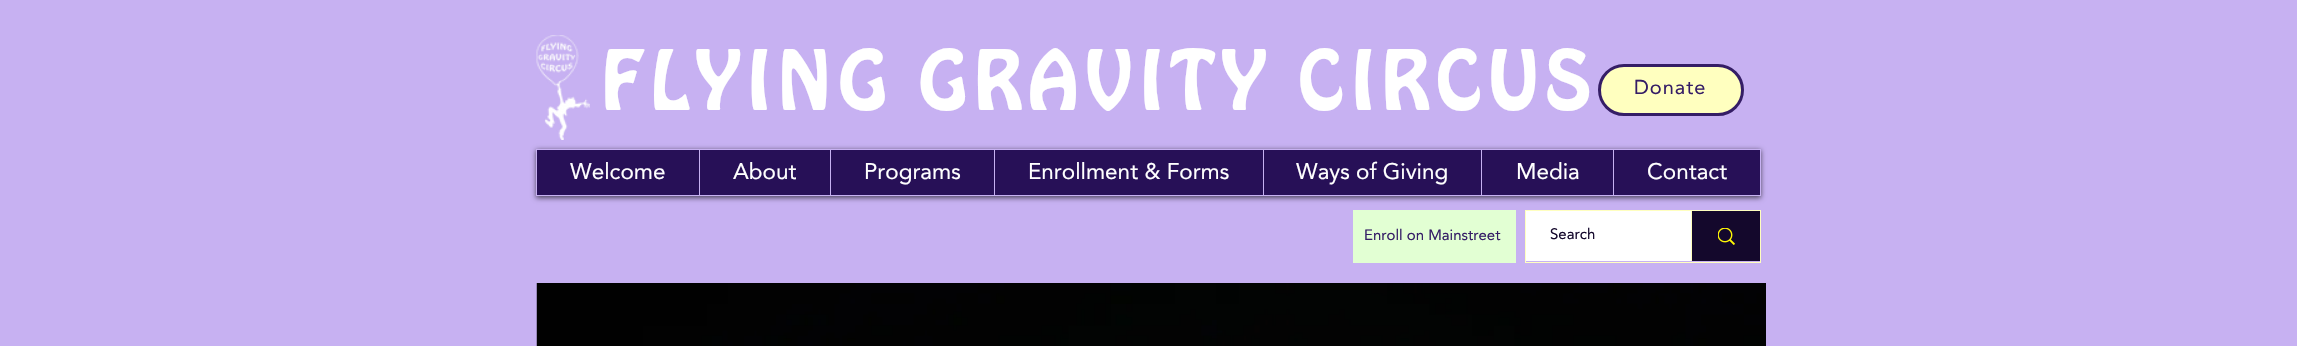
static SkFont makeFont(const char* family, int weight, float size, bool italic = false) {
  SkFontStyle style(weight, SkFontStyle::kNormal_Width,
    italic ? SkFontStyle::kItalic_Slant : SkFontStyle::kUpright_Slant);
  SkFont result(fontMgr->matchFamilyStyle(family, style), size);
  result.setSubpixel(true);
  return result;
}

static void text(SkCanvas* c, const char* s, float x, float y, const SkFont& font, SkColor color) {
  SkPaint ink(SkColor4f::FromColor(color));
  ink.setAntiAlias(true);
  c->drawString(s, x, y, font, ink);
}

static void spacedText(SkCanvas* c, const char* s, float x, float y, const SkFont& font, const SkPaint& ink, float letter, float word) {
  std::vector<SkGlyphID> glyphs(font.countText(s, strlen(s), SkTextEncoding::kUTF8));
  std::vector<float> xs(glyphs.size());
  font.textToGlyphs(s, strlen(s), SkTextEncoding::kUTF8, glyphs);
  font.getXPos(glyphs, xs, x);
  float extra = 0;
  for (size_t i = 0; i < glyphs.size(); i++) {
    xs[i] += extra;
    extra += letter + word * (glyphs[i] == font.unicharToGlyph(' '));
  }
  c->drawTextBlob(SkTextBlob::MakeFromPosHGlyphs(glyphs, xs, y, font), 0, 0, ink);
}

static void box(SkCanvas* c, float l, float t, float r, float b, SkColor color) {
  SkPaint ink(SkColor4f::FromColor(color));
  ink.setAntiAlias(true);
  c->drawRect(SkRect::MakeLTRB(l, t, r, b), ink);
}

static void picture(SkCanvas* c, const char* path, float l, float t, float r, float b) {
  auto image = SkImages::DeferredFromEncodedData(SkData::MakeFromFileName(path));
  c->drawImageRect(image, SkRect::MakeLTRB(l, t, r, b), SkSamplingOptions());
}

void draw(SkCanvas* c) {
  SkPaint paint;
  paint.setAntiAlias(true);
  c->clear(0xffc7b1f2);
  picture(c, "img_01.png", 536, 35, 590, 140);
  SkFont face1 = makeFont("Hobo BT", 400, 80);
  paint.setColor(0xffffffff);
  spacedText(c, "FLYING GRAVITY CIRCUS", 599, 110, face1, paint, 4, 0);
  paint.setColor(0x99000000);
  paint.setMaskFilter(SkMaskFilter::MakeBlur(kNormal_SkBlurStyle, 2.5f));
  c->drawRect(SkRect::MakeLTRB(536, 150, 1761, 198), paint);
  paint.setMaskFilter(nullptr);
  paint.setColor(0xff271057);
  c->drawRect(SkRect::MakeLTRB(536.5f, 149.5f, 1760.5f, 195.5f), paint);
  paint.setStyle(SkPaint::kStroke_Style);
  paint.setStrokeWidth(1);
  paint.setColor(0xffc7b1f2);
  c->drawRect(SkRect::MakeLTRB(536.5f, 149.5f, 1760.5f, 195.5f), paint);
  SkFont face2 = makeFont("Avenir", 400, 22.5f);
  text(c, "Welcome", 570, 179, face2, 0xffffffff);
  box(c, 699, 150, 700, 195, 0xffc7b1f2);
  text(c, "About", 733, 179, face2, 0xffffffff);
  box(c, 830, 150, 831, 195, 0xffc7b1f2);
  text(c, "Programs", 864, 179, face2, 0xffffffff);
  box(c, 994, 150, 995, 195, 0xffc7b1f2);
  text(c, "Enrollment & Forms", 1028, 179, face2, 0xffffffff);
  box(c, 1263, 150, 1264, 195, 0xffc7b1f2);
  text(c, "Ways of Giving", 1296, 179, face2, 0xffffffff);
  box(c, 1481, 150, 1482, 195, 0xffc7b1f2);
  text(c, "Media", 1516, 179, face2, 0xffffffff);
  box(c, 1613, 150, 1614, 195, 0xffc7b1f2);
  text(c, "Contact", 1647, 179, face2, 0xffffffff);
  paint.setStyle(SkPaint::kFill_Style);
  paint.setColor(0xffffffbf);
  c->drawRoundRect(SkRect::MakeLTRB(1599.5f, 65.5f, 1742.5f, 114.5f), 24.5f, 24.5f, paint);
  paint.setStyle(SkPaint::kStroke_Style);
  paint.setStrokeWidth(3);
  paint.setColor(0xff351d66);
  c->drawRoundRect(SkRect::MakeLTRB(1599.5f, 65.5f, 1742.5f, 114.5f), 24.5f, 24.5f, paint);
  SkFont face3 = makeFont("Avenir", 400, 20);
  paint.setStyle(SkPaint::kFill_Style);
  spacedText(c, "Donate", 1634, 94, face3, paint, 1, 0);
  box(c, 1353, 210, 1516, 263, 0xffe2ffd3);
  SkFont face4 = makeFont("Avenir", 400, 15);
  text(c, "Enroll on Mainstreet", 1364, 240, face4, 0xff351d66);
  paint.setStyle(SkPaint::kStroke_Style);
  paint.setStrokeWidth(1);
  paint.setColor(0xffffffbf);
  c->drawRect(SkRect::MakeLTRB(1525.5f, 210.5f, 1760.5f, 262.5f), paint);
  box(c, 1526, 211, 1691, 261, 0xffffffff);
  text(c, "Search", 1550, 239, face4, 0xff14082c);
  box(c, 1692, 211, 1760, 261, 0xff14082c);
  box(c, 1691, 211, 1692, 261, 0xffffffbf);
  picture(c, "img_02.png", 1718, 228, 1735, 245);
  picture(c, "img_03.png", 536, 283, 1766, 346);
}
